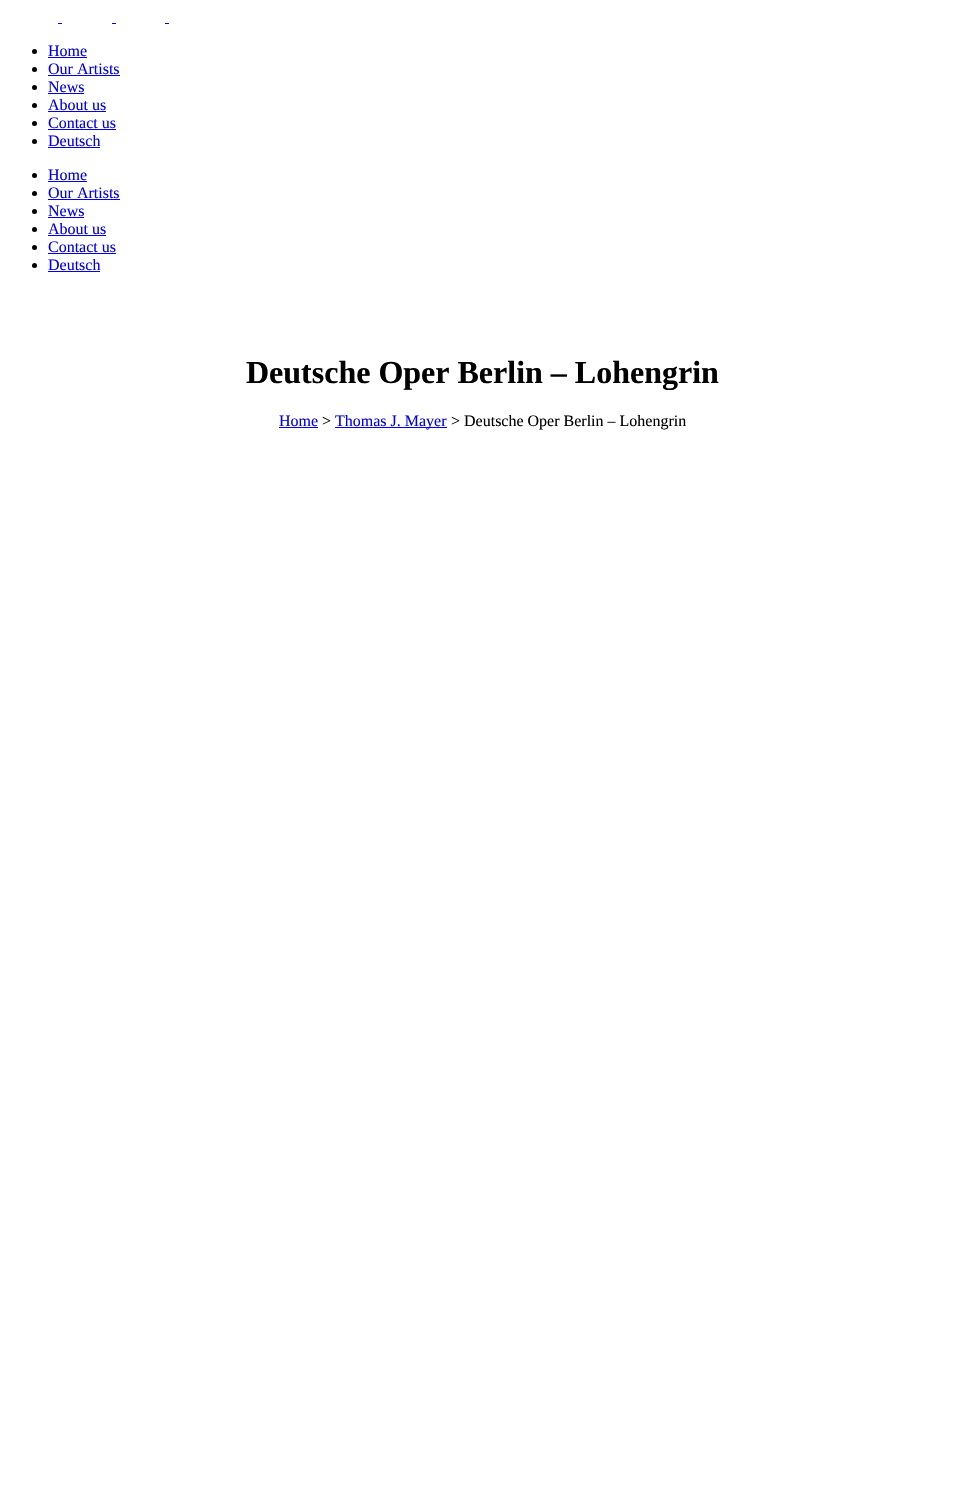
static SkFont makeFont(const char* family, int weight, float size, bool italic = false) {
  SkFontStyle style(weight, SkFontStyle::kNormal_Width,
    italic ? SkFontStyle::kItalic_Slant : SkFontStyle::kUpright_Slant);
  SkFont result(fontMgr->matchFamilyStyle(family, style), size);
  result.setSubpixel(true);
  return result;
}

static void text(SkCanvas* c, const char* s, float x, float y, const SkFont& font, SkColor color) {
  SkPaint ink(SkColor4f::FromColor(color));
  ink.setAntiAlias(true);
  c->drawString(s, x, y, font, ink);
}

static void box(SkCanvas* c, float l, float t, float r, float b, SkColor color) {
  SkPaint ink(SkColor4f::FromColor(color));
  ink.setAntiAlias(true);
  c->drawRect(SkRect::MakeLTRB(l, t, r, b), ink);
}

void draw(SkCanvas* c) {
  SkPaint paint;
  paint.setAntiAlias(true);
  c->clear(0xffffffff);
  box(c, 58, 23, 62, 24, 0xff0000ee);
  box(c, 112, 23, 116, 24, 0xff0000ee);
  box(c, 165, 23, 169, 24, 0xff0000ee);
  paint.setColor(0xff000000);
  c->drawCircle(34.5f, 51.5f, 2.5f, paint);
  SkFont face1 = makeFont("Liberation Serif", 400, 16);
  text(c, "Home", 48, 56, face1, 0xff0000ee);
  box(c, 48, 57, 87, 58, 0xff0000ee);
  c->drawCircle(34.5f, 69.5f, 2.5f, paint);
  text(c, "Our Artists", 48, 74, face1, 0xff0000ee);
  box(c, 48, 75, 120, 76, 0xff0000ee);
  c->drawCircle(34.5f, 87.5f, 2.5f, paint);
  text(c, "News", 48, 92, face1, 0xff0000ee);
  box(c, 48, 93, 84, 94, 0xff0000ee);
  c->drawCircle(34.5f, 105.5f, 2.5f, paint);
  text(c, "About us", 48, 110, face1, 0xff0000ee);
  box(c, 48, 111, 106, 112, 0xff0000ee);
  c->drawCircle(34.5f, 123.5f, 2.5f, paint);
  text(c, "Contact us", 48, 128, face1, 0xff0000ee);
  box(c, 48, 129, 116, 130, 0xff0000ee);
  c->drawCircle(34.5f, 141.5f, 2.5f, paint);
  text(c, "Deutsch", 48, 146, face1, 0xff0000ee);
  box(c, 48, 147, 100, 148, 0xff0000ee);
  c->drawCircle(34.5f, 175.5f, 2.5f, paint);
  text(c, "Home", 48, 180, face1, 0xff0000ee);
  box(c, 48, 181, 87, 182, 0xff0000ee);
  c->drawCircle(34.5f, 193.5f, 2.5f, paint);
  text(c, "Our Artists", 48, 198, face1, 0xff0000ee);
  box(c, 48, 199, 120, 200, 0xff0000ee);
  c->drawCircle(34.5f, 211.5f, 2.5f, paint);
  text(c, "News", 48, 216, face1, 0xff0000ee);
  box(c, 48, 217, 84, 218, 0xff0000ee);
  c->drawCircle(34.5f, 229.5f, 2.5f, paint);
  text(c, "About us", 48, 234, face1, 0xff0000ee);
  box(c, 48, 235, 106, 236, 0xff0000ee);
  c->drawCircle(34.5f, 247.5f, 2.5f, paint);
  text(c, "Contact us", 48, 252, face1, 0xff0000ee);
  box(c, 48, 253, 116, 254, 0xff0000ee);
  c->drawCircle(34.5f, 265.5f, 2.5f, paint);
  text(c, "Deutsch", 48, 270, face1, 0xff0000ee);
  box(c, 48, 271, 100, 272, 0xff0000ee);
  SkFont face2 = makeFont("Liberation Serif", 700, 32);
  text(c, "Deutsche Oper Berlin – Lohengrin", 246, 383, face2, 0xff000000);
  text(c, "Home", 279, 426, face1, 0xff0000ee);
  box(c, 279, 427, 318, 428, 0xff0000ee);
  text(c, ">", 322, 426, face1, 0xff000000);
  box(c, 335, 427, 447, 428, 0xff0000ee);
  text(c, "Thomas J. Mayer", 335, 426, face1, 0xff0000ee);
  text(c, "> Deutsche Oper Berlin – Lohengrin", 451, 426, face1, 0xff000000);
}
